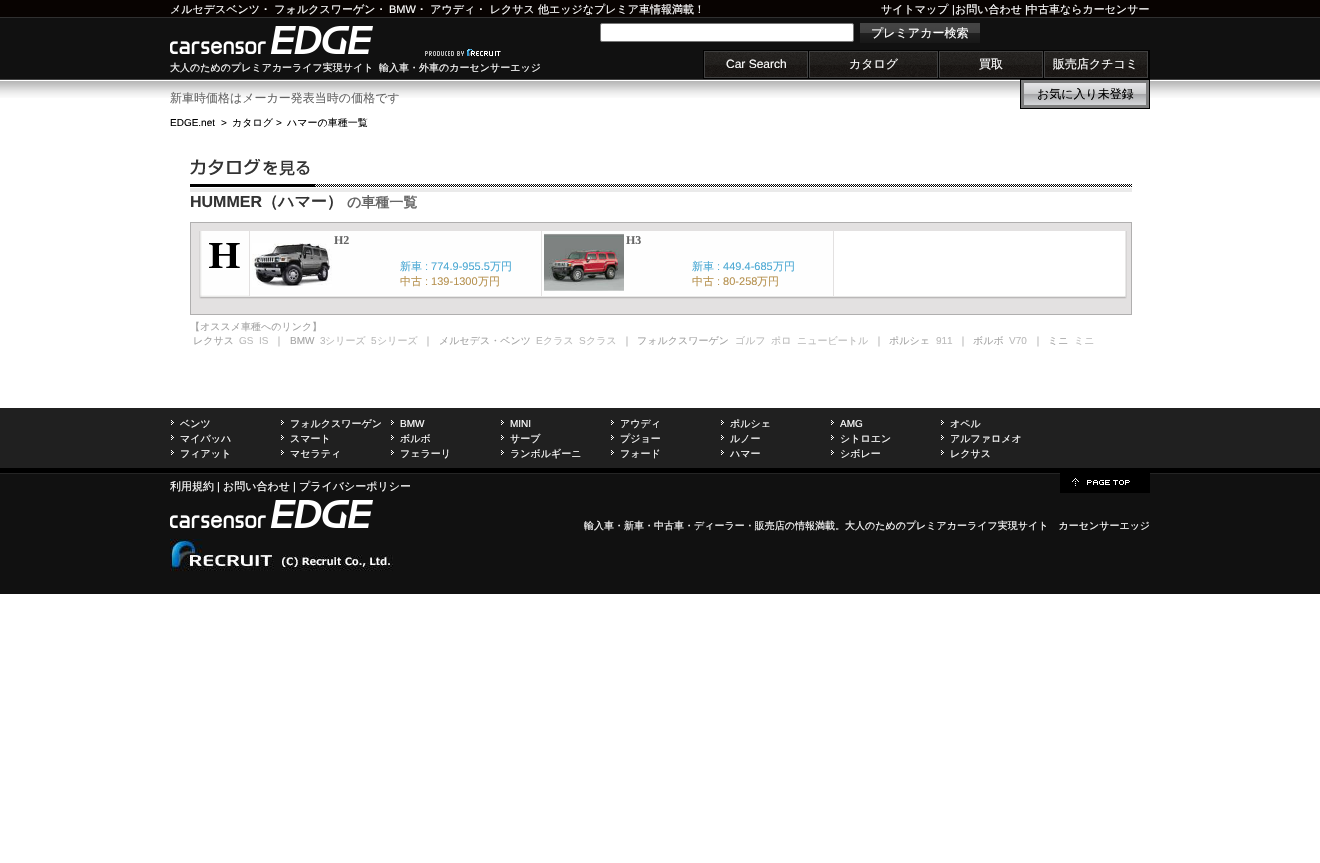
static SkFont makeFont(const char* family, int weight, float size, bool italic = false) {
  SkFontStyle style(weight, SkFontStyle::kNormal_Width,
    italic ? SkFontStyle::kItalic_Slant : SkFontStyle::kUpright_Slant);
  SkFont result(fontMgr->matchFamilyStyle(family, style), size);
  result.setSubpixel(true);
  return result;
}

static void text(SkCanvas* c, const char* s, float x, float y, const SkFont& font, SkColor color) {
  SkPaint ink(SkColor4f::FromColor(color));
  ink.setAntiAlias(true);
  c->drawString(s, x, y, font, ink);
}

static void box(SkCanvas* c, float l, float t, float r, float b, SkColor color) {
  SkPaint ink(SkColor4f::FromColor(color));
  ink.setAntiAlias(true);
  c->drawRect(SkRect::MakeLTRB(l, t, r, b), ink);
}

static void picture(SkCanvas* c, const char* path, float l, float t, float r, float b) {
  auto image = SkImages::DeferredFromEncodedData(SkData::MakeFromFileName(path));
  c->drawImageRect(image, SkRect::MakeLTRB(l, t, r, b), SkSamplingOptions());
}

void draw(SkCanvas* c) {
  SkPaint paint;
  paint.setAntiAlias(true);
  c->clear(0xffffffff);
  picture(c, "img_01.png", 0, 0, 1320, 98);
  SkFont face1 = makeFont("WenQuanYi Zen Hei", 500, 11);
  text(c, "メルセデスベンツ・ フォルクスワーゲン・", 170, 13, face1, 0xffffffff);
  SkFont face2 = makeFont("Liberation Sans", 400, 11);
  text(c, "BMW", 389, 13, face2, 0xffffffff);
  text(c, "・ アウディ・ レクサス 他エッジなプレミア車情報満載！", 416, 13, face1, 0xffffffff);
  text(c, "サイトマップ", 881, 13, face1, 0xffffffff);
  text(c, "|", 952, 13, face2, 0xffffffff);
  text(c, "お問い合わせ", 955, 13, face1, 0xffffffff);
  text(c, "|", 1025, 13, face2, 0xffffffff);
  text(c, "中古車ならカーセンサー", 1027, 13, face1, 0xffffffff);
  picture(c, "img_02.png", 170, 26, 373, 54);
  paint.setColor(0xffffffff);
  c->drawRoundRect(SkRect::MakeLTRB(600.5f, 23.5f, 853.5f, 41.5f), 1.5f, 1.5f, paint);
  paint.setStyle(SkPaint::kStroke_Style);
  paint.setStrokeWidth(1);
  paint.setColor(0xff767676);
  c->drawRoundRect(SkRect::MakeLTRB(600.5f, 23.5f, 853.5f, 41.5f), 1.5f, 1.5f, paint);
  picture(c, "img_03.png", 860, 23, 980, 43);
  SkFont face3 = makeFont("WenQuanYi Zen Hei", 500, 12);
  text(c, "プレミアカー検索", 871, 37, face3, 0xffffffff);
  picture(c, "img_04.png", 425, 49, 501, 56);
  SkFont face4 = makeFont("WenQuanYi Zen Hei", 500, 10);
  text(c, "大人のためのプレミアカーライフ実現サイト", 170, 71, face4, 0xffffffff);
  text(c, "輸入車・外車のカーセンサーエッジ", 379, 71, face4, 0xffffffff);
  box(c, 703, 50, 1150, 79, 0xff000000);
  picture(c, "img_05.png", 705, 52, 807, 77);
  paint.setColor(0xff404040);
  c->drawRect(SkRect::MakeLTRB(704.5f, 51.5f, 807.5f, 77.5f), paint);
  SkFont face5 = makeFont("Liberation Sans", 400, 12);
  text(c, "Car Search", 726, 68, face5, 0xffffffff);
  picture(c, "img_06.png", 810, 52, 937, 77);
  c->drawRect(SkRect::MakeLTRB(809.5f, 51.5f, 937.5f, 77.5f), paint);
  text(c, "カタログ", 849, 68, face3, 0xffffffff);
  picture(c, "img_05.png", 940, 52, 1042, 77);
  c->drawRect(SkRect::MakeLTRB(939.5f, 51.5f, 1042.5f, 77.5f), paint);
  text(c, "買取", 979, 68, face3, 0xffffffff);
  picture(c, "img_05.png", 1045, 52, 1147, 77);
  c->drawRect(SkRect::MakeLTRB(1044.5f, 51.5f, 1147.5f, 77.5f), paint);
  text(c, "販売店クチコミ", 1053, 68, face3, 0xffffffff);
  picture(c, "img_07.png", 1024, 83, 1146, 105);
  paint.setColor(0xff000000);
  c->drawRect(SkRect::MakeLTRB(1020.5f, 79.5f, 1149.5f, 108.5f), paint);
  paint.setStrokeWidth(3);
  paint.setColor(0xff7d7d7d);
  c->drawRect(SkRect::MakeLTRB(1022.5f, 81.5f, 1147.5f, 106.5f), paint);
  text(c, "お気に入り未登録", 1037, 98, face3, 0xff000000);
  text(c, "新車時価格はメーカー発表当時の価格です", 170, 102, face3, 0xff666666);
  SkFont face6 = makeFont("Liberation Sans", 400, 10);
  text(c, "EDGE.net", 170, 126, face6, 0xff000000);
  text(c, ">", 221, 126, face6, 0xff000000);
  text(c, "カタログ", 232, 126, face4, 0xff000000);
  text(c, ">", 276, 126, face6, 0xff000000);
  text(c, "ハマーの車種一覧", 287, 126, face4, 0xff000000);
  picture(c, "img_08.png", 190, 159, 1132, 192);
  SkFont face7 = makeFont("Liberation Sans", 700, 16);
  text(c, "HUMMER", 190, 207, face7, 0xff333333);
  SkFont face8 = makeFont("WenQuanYi Zen Hei", 700, 16);
  text(c, "（ハマー）", 262, 207, face8, 0xff333333);
  SkFont face9 = makeFont("WenQuanYi Zen Hei", 700, 14);
  text(c, "の車種一覧", 347, 207, face9, 0xff666666);
  paint.setStyle(SkPaint::kFill_Style);
  paint.setColor(0xffe3e1e1);
  c->drawRect(SkRect::MakeLTRB(190.5f, 222.5f, 1131.5f, 314.5f), paint);
  paint.setStyle(SkPaint::kStroke_Style);
  paint.setStrokeWidth(1);
  paint.setColor(0xffb0afaf);
  c->drawRect(SkRect::MakeLTRB(190.5f, 222.5f, 1131.5f, 314.5f), paint);
  picture(c, "img_09.png", 199, 231, 1127, 295);
  picture(c, "img_10.png", 209, 243, 240, 268);
  picture(c, "img_11.png", 199, 295, 1127, 299);
  box(c, 250, 295, 541, 296, 0xffffffff);
  box(c, 249, 231, 250, 296, 0xffe3e1e1);
  SkFont face10 = makeFont("Liberation Serif", 700, 12);
  text(c, "H2", 334, 244, face10, 0xff666666);
  picture(c, "img_12.png", 252, 243, 332, 287);
  text(c, "新車", 400, 270, face1, 0xff4ca9d4);
  text(c, ": 774.9-955.5", 425, 270, face2, 0xff4ca9d4);
  text(c, "万円", 490, 270, face1, 0xff4ca9d4);
  text(c, "中古", 400, 285, face1, 0xffb6914f);
  text(c, ": 139-1300", 425, 285, face2, 0xffb6914f);
  text(c, "万円", 478, 285, face1, 0xffb6914f);
  box(c, 542, 295, 833, 296, 0xffffffff);
  box(c, 541, 231, 542, 296, 0xffe3e1e1);
  picture(c, "img_13.png", 544, 233, 624, 291);
  text(c, "H3", 626, 244, face10, 0xff666666);
  text(c, "新車", 692, 270, face1, 0xff4ca9d4);
  text(c, ": 449.4-685", 717, 270, face2, 0xff4ca9d4);
  text(c, "万円", 773, 270, face1, 0xff4ca9d4);
  text(c, "中古", 692, 285, face1, 0xffb6914f);
  text(c, ": 80-258", 717, 285, face2, 0xffb6914f);
  text(c, "万円", 757, 285, face1, 0xffb6914f);
  box(c, 834, 231, 1125, 296, 0xffffffff);
  box(c, 833, 231, 834, 296, 0xffe3e1e1);
  text(c, "【オススメ車種へのリンク】", 190, 330, face4, 0xffa4a4a4);
  text(c, "レクサス", 193, 344, face4, 0xffa4a4a4);
  text(c, "GS", 239, 344, face6, 0xffbbbbbb);
  text(c, "IS", 259, 344, face6, 0xffbbbbbb);
  text(c, "｜", 274, 344, face4, 0xffa4a4a4);
  text(c, "BMW", 290, 344, face6, 0xffa4a4a4);
  text(c, "3", 320, 344, face6, 0xffbbbbbb);
  text(c, "シリーズ", 325, 344, face4, 0xffbbbbbb);
  text(c, "5", 371, 344, face6, 0xffbbbbbb);
  text(c, "シリーズ", 377, 344, face4, 0xffbbbbbb);
  text(c, "｜", 423, 344, face4, 0xffa4a4a4);
  text(c, "メルセデス・ベンツ", 439, 344, face4, 0xffa4a4a4);
  text(c, "E", 536, 344, face6, 0xffbbbbbb);
  text(c, "クラス", 543, 344, face4, 0xffbbbbbb);
  text(c, "S", 579, 344, face6, 0xffbbbbbb);
  text(c, "クラス", 586, 344, face4, 0xffbbbbbb);
  text(c, "｜", 622, 344, face4, 0xffa4a4a4);
  text(c, "フォルクスワーゲン", 637, 344, face4, 0xffa4a4a4);
  text(c, "ゴルフ", 735, 344, face4, 0xffbbbbbb);
  text(c, "ポロ", 771, 344, face4, 0xffbbbbbb);
  text(c, "ニュービートル", 797, 344, face4, 0xffbbbbbb);
  text(c, "｜", 874, 344, face4, 0xffa4a4a4);
  text(c, "ポルシェ", 889, 344, face4, 0xffa4a4a4);
  text(c, "911", 936, 344, face6, 0xffbbbbbb);
  text(c, "｜", 958, 344, face4, 0xffa4a4a4);
  text(c, "ボルボ", 973, 344, face4, 0xffa4a4a4);
  text(c, "V70", 1009, 344, face6, 0xffbbbbbb);
  text(c, "｜", 1033, 344, face4, 0xffa4a4a4);
  text(c, "ミニ", 1048, 344, face4, 0xffa4a4a4);
  text(c, "ミニ", 1074, 344, face4, 0xffbbbbbb);
  box(c, 0, 408, 1320, 468, 0xff202020);
  box(c, 0, 468, 1320, 473, 0xff000000);
  picture(c, "img_14.png", 171, 420, 174, 425);
  text(c, "ベンツ", 180, 427, face4, 0xffffffff);
  picture(c, "img_14.png", 281, 420, 284, 425);
  text(c, "フォルクスワーゲン", 290, 427, face4, 0xffffffff);
  picture(c, "img_14.png", 391, 420, 394, 425);
  text(c, "BMW", 400, 427, face6, 0xffffffff);
  picture(c, "img_14.png", 501, 420, 504, 425);
  text(c, "MINI", 510, 427, face6, 0xffffffff);
  picture(c, "img_14.png", 611, 420, 614, 425);
  text(c, "アウディ", 620, 427, face4, 0xffffffff);
  picture(c, "img_14.png", 721, 420, 724, 425);
  text(c, "ポルシェ", 730, 427, face4, 0xffffffff);
  picture(c, "img_14.png", 831, 420, 834, 425);
  text(c, "AMG", 840, 427, face6, 0xffffffff);
  picture(c, "img_14.png", 941, 420, 944, 425);
  text(c, "オペル", 950, 427, face4, 0xffffffff);
  picture(c, "img_14.png", 171, 435, 174, 440);
  text(c, "マイバッハ", 180, 442, face4, 0xffffffff);
  picture(c, "img_14.png", 281, 435, 284, 440);
  text(c, "スマート", 290, 442, face4, 0xffffffff);
  picture(c, "img_14.png", 391, 435, 394, 440);
  text(c, "ボルボ", 400, 442, face4, 0xffffffff);
  picture(c, "img_14.png", 501, 435, 504, 440);
  text(c, "サーブ", 510, 442, face4, 0xffffffff);
  picture(c, "img_14.png", 611, 435, 614, 440);
  text(c, "プジョー", 620, 442, face4, 0xffffffff);
  picture(c, "img_14.png", 721, 435, 724, 440);
  text(c, "ルノー", 730, 442, face4, 0xffffffff);
  picture(c, "img_14.png", 831, 435, 834, 440);
  text(c, "シトロエン", 840, 442, face4, 0xffffffff);
  picture(c, "img_14.png", 941, 435, 944, 440);
  text(c, "アルファロメオ", 950, 442, face4, 0xffffffff);
  picture(c, "img_14.png", 171, 450, 174, 455);
  text(c, "フィアット", 180, 457, face4, 0xffffffff);
  picture(c, "img_14.png", 281, 450, 284, 455);
  text(c, "マセラティ", 290, 457, face4, 0xffffffff);
  picture(c, "img_14.png", 391, 450, 394, 455);
  text(c, "フェラーリ", 400, 457, face4, 0xffffffff);
  picture(c, "img_14.png", 501, 450, 504, 455);
  text(c, "ランボルギーニ", 510, 457, face4, 0xffffffff);
  picture(c, "img_14.png", 611, 450, 614, 455);
  text(c, "フォード", 620, 457, face4, 0xffffffff);
  picture(c, "img_14.png", 721, 450, 724, 455);
  text(c, "ハマー", 730, 457, face4, 0xffffffff);
  picture(c, "img_14.png", 831, 450, 834, 455);
  text(c, "シボレー", 840, 457, face4, 0xffffffff);
  picture(c, "img_14.png", 941, 450, 944, 455);
  text(c, "レクサス", 950, 457, face4, 0xffffffff);
  box(c, 0, 474, 1320, 594, 0xff111111);
  box(c, 0, 473, 1320, 474, 0xff252525);
  text(c, "利用規約", 170, 490, face1, 0xffffffff);
  text(c, "|", 217, 490, face2, 0xffffffff);
  text(c, "お問い合わせ", 223, 490, face1, 0xffffffff);
  text(c, "|", 293, 490, face2, 0xffffffff);
  text(c, "プライバシーポリシー", 299, 490, face1, 0xffffffff);
  picture(c, "img_15.png", 1060, 473, 1150, 493);
  picture(c, "img_02.png", 170, 500, 373, 528);
  text(c, "輸入車・新車・中古車・ディーラー・販売店の情報満載。大人のためのプレミアカーライフ実現サイト　カーセンサーエッジ", 584, 529, face4, 0xffffffff);
  picture(c, "img_16.png", 170, 539, 393, 572);
}
